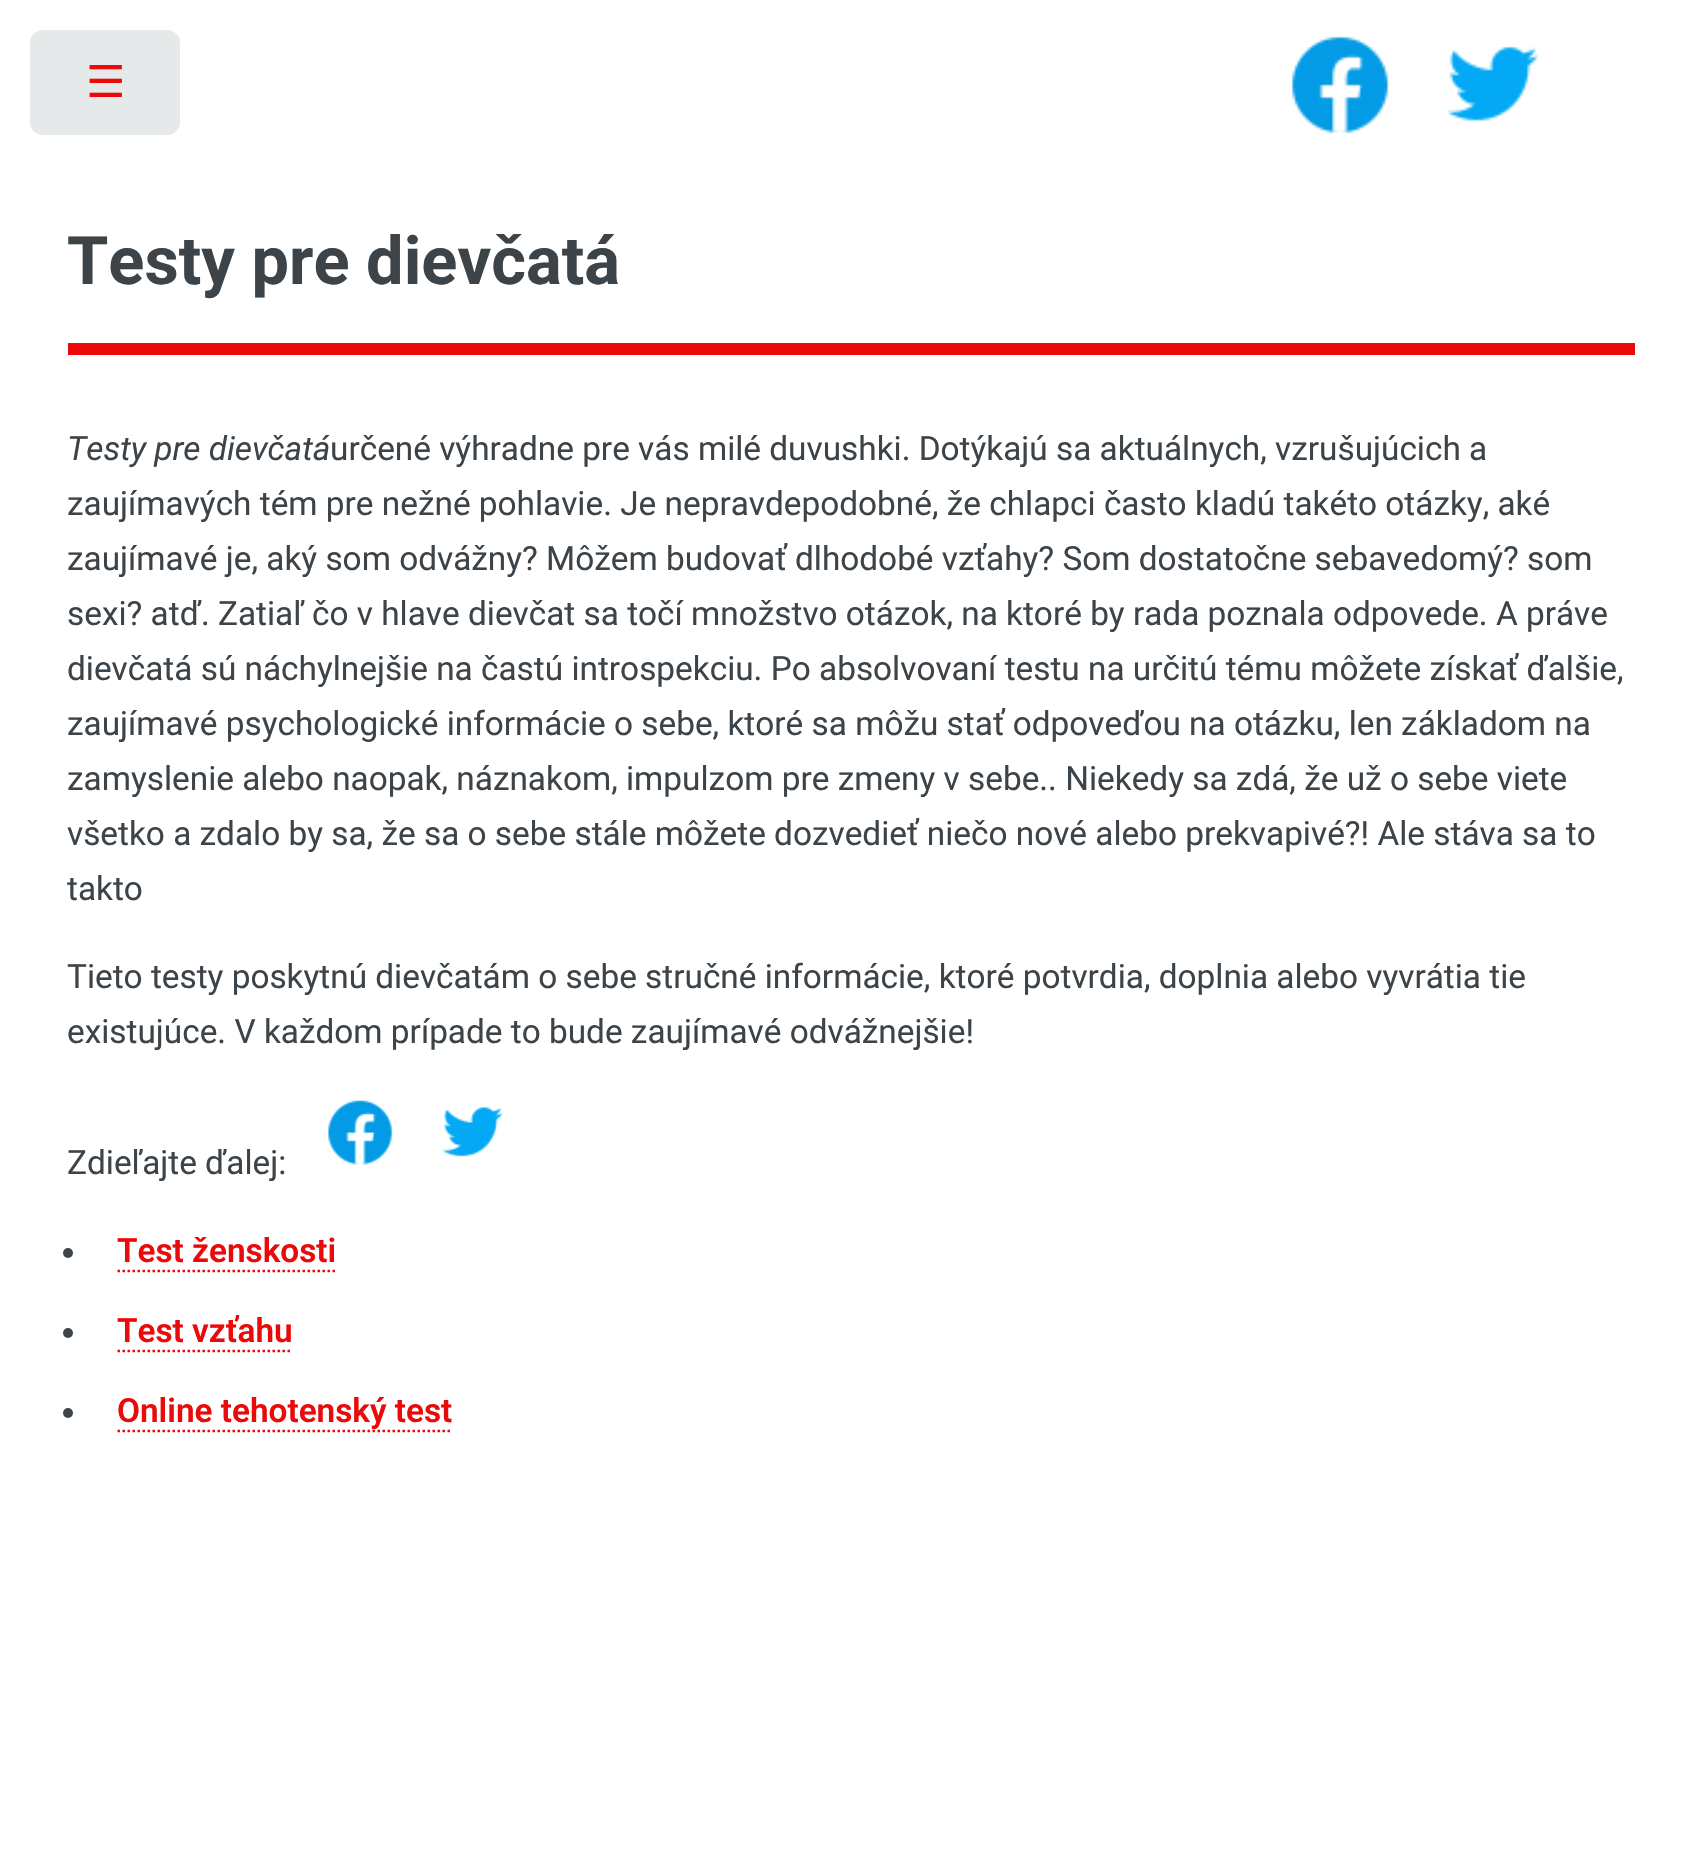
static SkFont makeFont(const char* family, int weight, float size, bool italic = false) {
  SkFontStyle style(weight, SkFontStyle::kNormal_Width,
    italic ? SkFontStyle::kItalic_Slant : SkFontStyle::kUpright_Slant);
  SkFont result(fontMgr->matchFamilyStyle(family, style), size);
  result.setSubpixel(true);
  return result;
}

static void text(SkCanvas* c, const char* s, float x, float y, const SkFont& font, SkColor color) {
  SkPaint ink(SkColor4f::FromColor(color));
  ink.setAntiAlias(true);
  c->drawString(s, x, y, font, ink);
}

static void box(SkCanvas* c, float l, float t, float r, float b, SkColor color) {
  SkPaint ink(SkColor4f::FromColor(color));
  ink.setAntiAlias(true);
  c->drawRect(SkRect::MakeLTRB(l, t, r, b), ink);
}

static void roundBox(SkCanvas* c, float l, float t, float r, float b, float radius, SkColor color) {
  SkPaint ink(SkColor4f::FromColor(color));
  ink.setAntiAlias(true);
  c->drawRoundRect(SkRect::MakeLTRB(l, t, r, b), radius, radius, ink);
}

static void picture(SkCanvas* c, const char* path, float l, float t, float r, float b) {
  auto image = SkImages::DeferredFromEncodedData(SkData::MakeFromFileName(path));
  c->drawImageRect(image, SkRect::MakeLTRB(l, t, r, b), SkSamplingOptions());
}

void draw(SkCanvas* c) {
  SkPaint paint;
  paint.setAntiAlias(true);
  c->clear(0xffffffff);
  roundBox(c, 30, 30, 180, 135, 13, 0xffe6e9e9);
  SkFont face1 = makeFont("DejaVu Sans", 400, 44);
  text(c, "☰", 86, 97, face1, 0xffec0909);
  picture(c, "img_01.png", 1291, 36, 1389, 134);
  picture(c, "img_02.png", 1447, 46, 1539, 121);
  box(c, 68, 343, 1635, 355, 0xffec0909);
  SkFont face2 = makeFont("Roboto", 700, 66.75f);
  text(c, "Testy pre dievčatá", 67, 284, face2, 0xff3d4449);
  SkFont face3 = makeFont("Roboto", 400, 33.35f, true);
  text(c, "Testy pre dievčatá", 67, 460, face3, 0xff3d4449);
  SkFont face4 = makeFont("Roboto", 400, 33.35f);
  text(c, "určené výhradne pre vás milé duvushki. Dotýkajú sa aktuálnych, vzrušujúcich a", 330, 460, face4, 0xff3d4449);
  text(c, "zaujímavých tém pre nežné pohlavie. Je nepravdepodobné, že chlapci často kladú takéto otázky, aké", 67, 515, face4, 0xff3d4449);
  text(c, "zaujímavé je, aký som odvážny? Môžem budovať dlhodobé vzťahy? Som dostatočne sebavedomý? som", 67, 570, face4, 0xff3d4449);
  text(c, "sexi? atď. Zatiaľ čo v hlave dievčat sa točí množstvo otázok, na ktoré by rada poznala odpovede. A práve", 67, 625, face4, 0xff3d4449);
  text(c, "dievčatá sú náchylnejšie na častú introspekciu. Po absolvovaní testu na určitú tému môžete získať ďalšie,", 67, 680, face4, 0xff3d4449);
  text(c, "zaujímavé psychologické informácie o sebe, ktoré sa môžu stať odpoveďou na otázku, len základom na", 67, 735, face4, 0xff3d4449);
  text(c, "zamyslenie alebo naopak, náznakom, impulzom pre zmeny v sebe.. Niekedy sa zdá, že už o sebe viete", 67, 790, face4, 0xff3d4449);
  text(c, "všetko a zdalo by sa, že sa o sebe stále môžete dozvedieť niečo nové alebo prekvapivé?! Ale stáva sa to", 67, 845, face4, 0xff3d4449);
  text(c, "takto", 67, 900, face4, 0xff3d4449);
  text(c, "Tieto testy poskytnú dievčatám o sebe stručné informácie, ktoré potvrdia, doplnia alebo vyvrátia tie", 67, 988, face4, 0xff3d4449);
  text(c, "existujúce. V každom prípade to bude zaujímavé odvážnejšie!", 67, 1043, face4, 0xff3d4449);
  picture(c, "img_03.png", 328, 1100, 393, 1165);
  picture(c, "img_04.png", 442, 1107, 503, 1157);
  text(c, "Zdieľajte ďalej:", 67, 1174, face4, 0xff3d4449);
  paint.setColor(0xff3d4449);
  c->drawCircle(68, 1253, 5, paint);
  SkFont face5 = makeFont("Roboto", 600, 33.35f);
  text(c, "Test ženskosti", 117, 1262, face5, 0xffec0909);
  paint.setStyle(SkPaint::kStroke_Style);
  paint.setStrokeWidth(2.5f);
  paint.setColor(0xffec0909);
  paint.setPathEffect(SkDashPathEffect::Make({{2.5f, 2.5f}}, 0));
  c->drawPath(SkPathBuilder().moveTo(117.5f, 1271).lineTo(335, 1271).detach(), paint);
  paint.setPathEffect(nullptr);
  paint.setStyle(SkPaint::kFill_Style);
  paint.setColor(0xff3d4449);
  c->drawCircle(68, 1333, 5, paint);
  text(c, "Test vzťahu", 117, 1342, face5, 0xffec0909);
  paint.setStyle(SkPaint::kStroke_Style);
  paint.setColor(0xffec0909);
  paint.setPathEffect(SkDashPathEffect::Make({{2.5f, 2.5f}}, 0));
  c->drawPath(SkPathBuilder().moveTo(117.5f, 1351).lineTo(292.5f, 1351).detach(), paint);
  paint.setPathEffect(nullptr);
  paint.setStyle(SkPaint::kFill_Style);
  paint.setColor(0xff3d4449);
  c->drawCircle(68, 1413, 5, paint);
  paint.setStyle(SkPaint::kStroke_Style);
  paint.setColor(0xffec0909);
  paint.setPathEffect(SkDashPathEffect::Make({{2.5f, 2.5f}}, 0));
  c->drawPath(SkPathBuilder().moveTo(117.5f, 1431).lineTo(452.5f, 1431).detach(), paint);
  paint.setPathEffect(nullptr);
  text(c, "Online tehotenský test", 117, 1422, face5, 0xffec0909);
}
